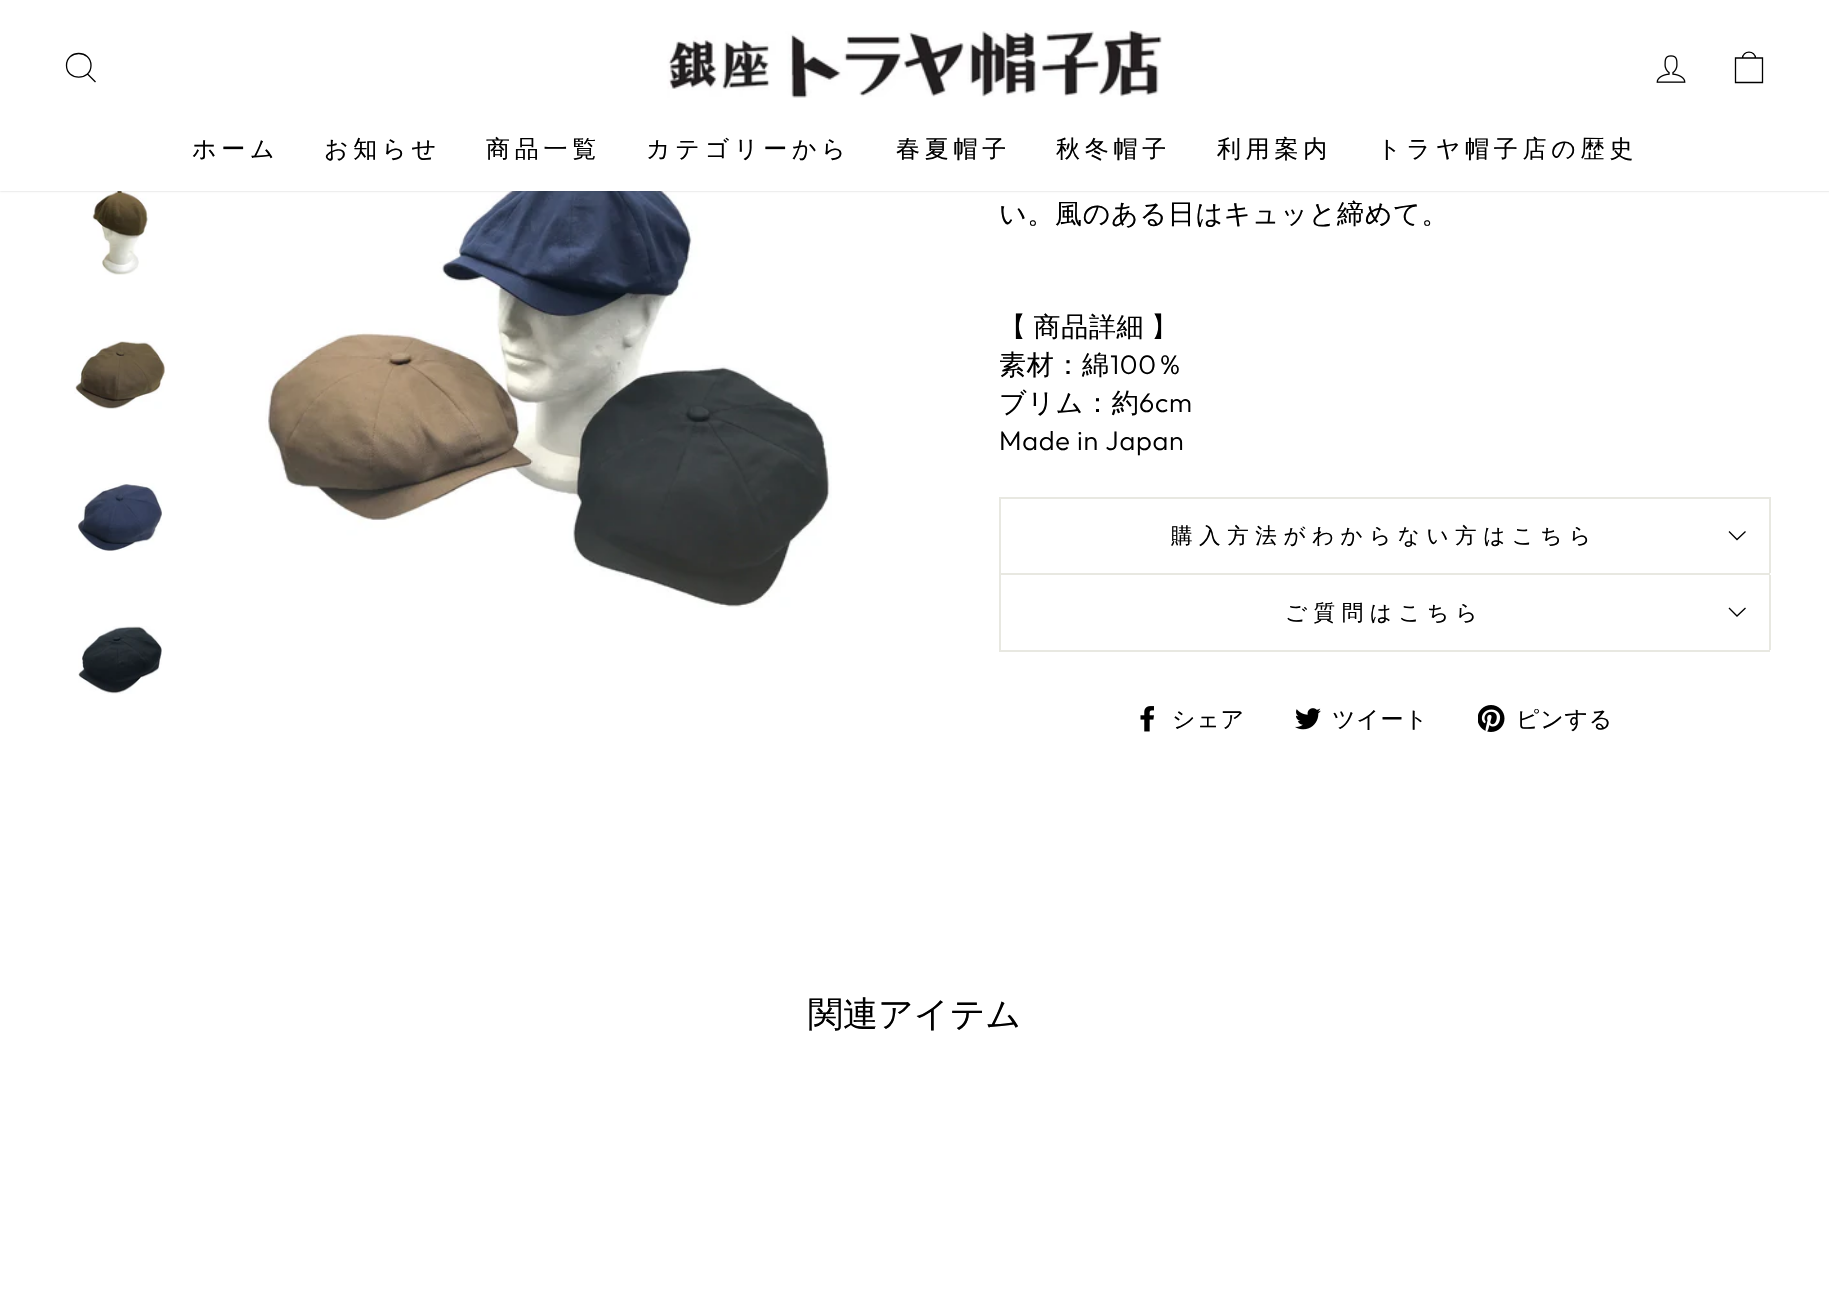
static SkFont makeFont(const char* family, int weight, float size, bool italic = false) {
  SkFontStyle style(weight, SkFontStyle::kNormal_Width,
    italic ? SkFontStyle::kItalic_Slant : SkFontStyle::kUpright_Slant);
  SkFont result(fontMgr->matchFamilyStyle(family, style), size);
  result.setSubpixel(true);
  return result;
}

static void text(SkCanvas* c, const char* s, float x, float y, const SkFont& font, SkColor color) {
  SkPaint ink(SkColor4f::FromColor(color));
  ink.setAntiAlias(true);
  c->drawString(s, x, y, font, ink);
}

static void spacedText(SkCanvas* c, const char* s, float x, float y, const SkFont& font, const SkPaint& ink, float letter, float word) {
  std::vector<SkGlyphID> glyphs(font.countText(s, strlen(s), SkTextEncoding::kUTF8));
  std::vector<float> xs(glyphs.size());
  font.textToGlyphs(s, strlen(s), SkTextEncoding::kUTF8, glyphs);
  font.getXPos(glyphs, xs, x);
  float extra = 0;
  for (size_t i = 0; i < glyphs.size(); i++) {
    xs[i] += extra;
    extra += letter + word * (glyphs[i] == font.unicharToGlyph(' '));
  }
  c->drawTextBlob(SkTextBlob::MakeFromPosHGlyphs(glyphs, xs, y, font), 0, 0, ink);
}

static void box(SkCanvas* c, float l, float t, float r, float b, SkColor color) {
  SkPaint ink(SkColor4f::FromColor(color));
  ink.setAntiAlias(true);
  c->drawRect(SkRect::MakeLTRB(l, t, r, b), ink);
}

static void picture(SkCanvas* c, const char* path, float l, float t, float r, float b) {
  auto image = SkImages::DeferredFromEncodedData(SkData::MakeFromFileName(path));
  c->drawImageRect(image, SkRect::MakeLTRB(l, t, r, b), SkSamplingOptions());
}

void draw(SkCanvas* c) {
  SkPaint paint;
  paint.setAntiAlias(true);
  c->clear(0xffffffff);
  picture(c, "img_03.png", 92, 191, 149, 275);
  picture(c, "img_07.png", 265, 191, 832, 608);
  paint.setColor(0x33000000);
  paint.setMaskFilter(SkMaskFilter::MakeBlur(kNormal_SkBlurStyle, 1));
  c->drawRect(SkRect::MakeLTRB(0, 0, 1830, 191), paint);
  paint.setMaskFilter(nullptr);
  box(c, 0, 0, 1829, 191, 0xffffffff);
  paint.setStyle(SkPaint::kStroke_Style);
  paint.setStrokeWidth(1.3f);
  paint.setColor(0xff000000);
  c->drawPath(SkPathBuilder().moveTo(91, 65.5f).cubicTo(91, 81, 66.5f, 81, 66.5f, 65.5f).cubicTo(66.5f, 49.5f, 91, 49.5f, 91, 65.5f).close().moveTo(95.5f, 82).lineTo(87.5f, 74).detach(), paint);
  picture(c, "img_01.png", 667, 30, 1162, 98);
  picture(c, "img_02.png", 1656, 55, 1686, 83);
  c->drawPath(SkPathBuilder().moveTo(1735.5f, 58).lineTo(1762.5f, 58).lineTo(1762.5f, 82.5f).lineTo(1735.5f, 82.5f).close().moveTo(1742.5f, 58.5f).cubicTo(1742.5f, 50, 1755.5f, 50, 1755.5f, 58.5f).detach(), paint);
  SkFont face1 = makeFont("WenQuanYi Zen Hei", 500, 24);
  paint.setStyle(SkPaint::kFill_Style);
  spacedText(c, "ホーム", 192, 157, face1, paint, 4.75f, 0);
  spacedText(c, "お知らせ", 324, 157, face1, paint, 4.75f, 0);
  spacedText(c, "商品一覧", 486, 157, face1, paint, 4.75f, 0);
  spacedText(c, "カテゴリーから", 646, 157, face1, paint, 4.75f, 0);
  spacedText(c, "春夏帽子", 896, 157, face1, paint, 4.75f, 0);
  spacedText(c, "秋冬帽子", 1056, 157, face1, paint, 4.75f, 0);
  spacedText(c, "利用案内", 1217, 157, face1, paint, 4.75f, 0);
  spacedText(c, "トラヤ帽子店の歴史", 1377, 157, face1, paint, 4.75f, 0);
  picture(c, "img_04.png", 74, 341, 166, 409);
  picture(c, "img_05.png", 78, 483, 162, 551);
  picture(c, "img_06.png", 78, 626, 162, 694);
  SkFont face2 = makeFont("WenQuanYi Zen Hei", 500, 27);
  spacedText(c, "い。風のある日はキュッと締めて。", 999, 223, face2, paint, 0.7f, 0);
  spacedText(c, "【 商品詳細 】", 999, 336, face2, paint, 0.7f, -2);
  spacedText(c, "素材：綿", 999, 374, face2, paint, 0.7f, 0);
  SkFont face3 = makeFont("Outfit", 300, 27);
  spacedText(c, "100", 1110, 374, face3, paint, 0.7f, 0);
  spacedText(c, "％", 1156, 374, face2, paint, 0.7f, 0);
  spacedText(c, "ブリム：約", 999, 412, face2, paint, 0.7f, 0);
  spacedText(c, "6cm", 1139, 412, face3, paint, 0.7f, 0);
  spacedText(c, "Made in Japan", 999, 450, face3, paint, 0.7f, 0);
  box(c, 999, 573, 1770, 575, 0xffe8e8e1);
  box(c, 999, 497, 1770, 499, 0xffe8e8e1);
  box(c, 1769, 497, 1771, 573, 0xffe8e8e1);
  box(c, 999, 497, 1001, 573, 0xffe8e8e1);
  SkFont face4 = makeFont("WenQuanYi Zen Hei", 500, 21.6f);
  spacedText(c, "購入方法がわからない方はこちら", 1171, 543, face4, paint, 6.5f, 0);
  paint.setStyle(SkPaint::kStroke_Style);
  c->drawPath(SkPathBuilder().moveTo(1729, 531.5f).lineTo(1737, 539.5f).lineTo(1745.5f, 531.5f).detach(), paint);
  box(c, 999, 650, 1770, 652, 0xffe8e8e1);
  box(c, 1769, 575, 1771, 650, 0xffe8e8e1);
  box(c, 999, 575, 1001, 650, 0xffe8e8e1);
  paint.setStyle(SkPaint::kFill_Style);
  spacedText(c, "ご質問はこちら", 1285, 620, face4, paint, 6.5f, 0);
  paint.setStyle(SkPaint::kStroke_Style);
  c->drawPath(SkPathBuilder().moveTo(1729, 608).lineTo(1737, 616).lineTo(1745.5f, 608).detach(), paint);
  picture(c, "img_08.png", 1140, 706, 1154, 732);
  SkFont face5 = makeFont("WenQuanYi Zen Hei", 500, 23);
  paint.setStyle(SkPaint::kFill_Style);
  spacedText(c, "シェア", 1172, 727, face5, paint, 0.7f, 0);
  picture(c, "img_09.png", 1295, 708, 1321, 730);
  spacedText(c, "ツイート", 1332, 727, face5, paint, 0.7f, 0);
  picture(c, "img_10.png", 1478, 705, 1505, 732);
  spacedText(c, "ピンする", 1516, 727, face5, paint, 0.7f, 0);
  SkFont face6 = makeFont("WenQuanYi Zen Hei", 500, 35);
  text(c, "関連アイテム", 808, 1026, face6, 0xff000000);
}
